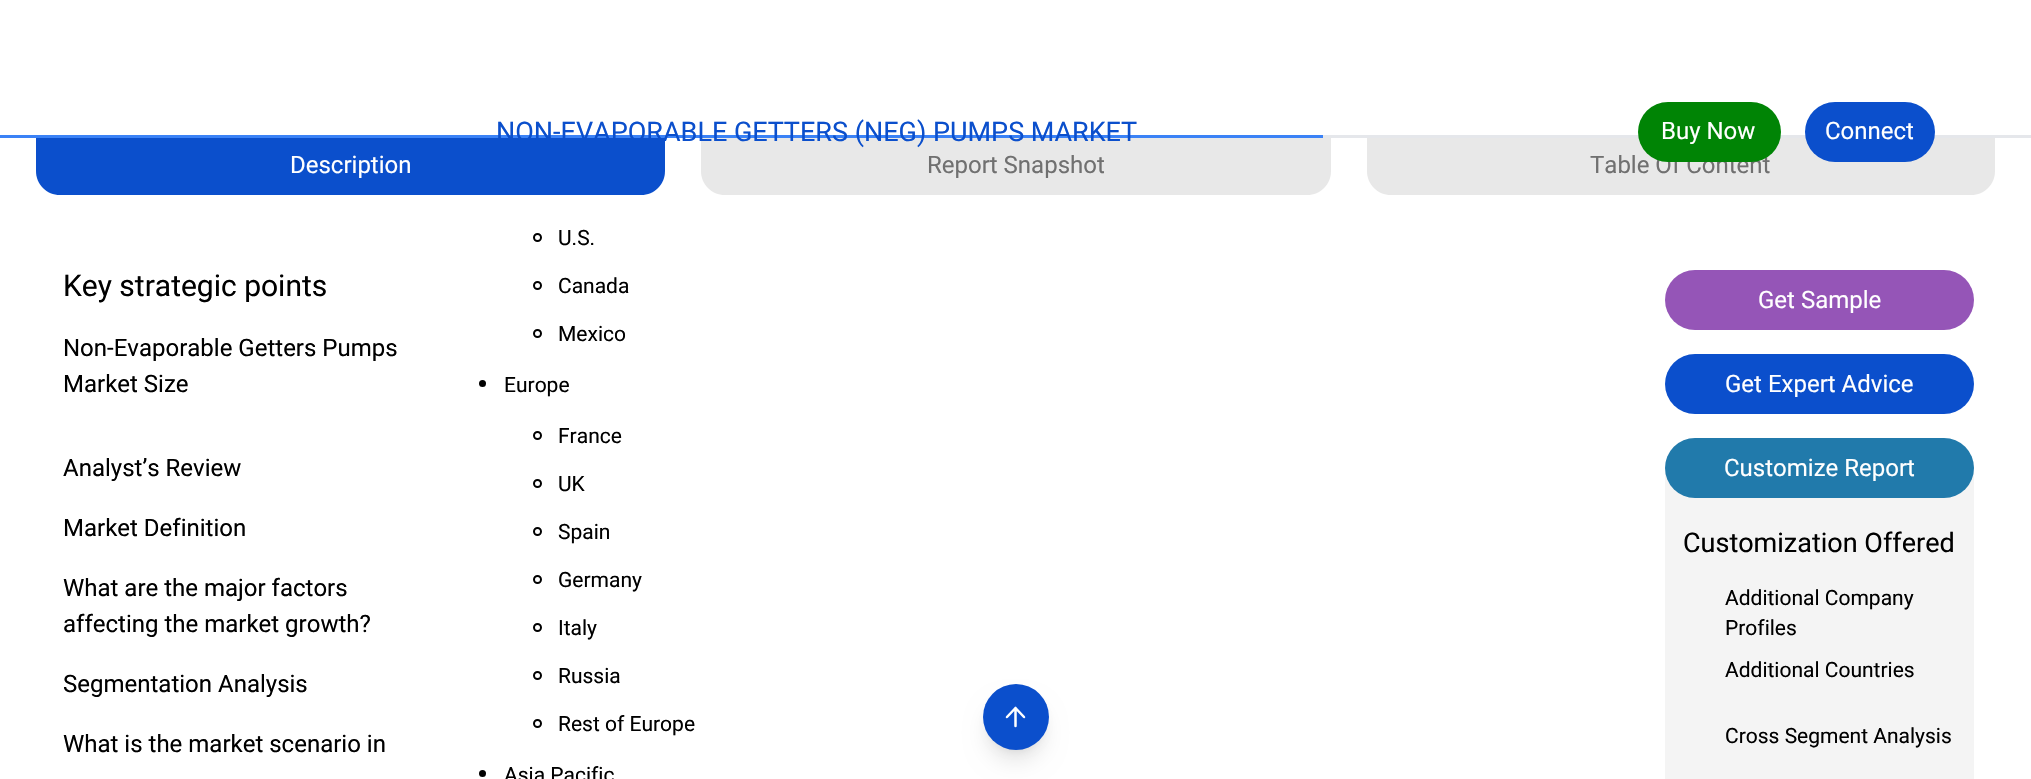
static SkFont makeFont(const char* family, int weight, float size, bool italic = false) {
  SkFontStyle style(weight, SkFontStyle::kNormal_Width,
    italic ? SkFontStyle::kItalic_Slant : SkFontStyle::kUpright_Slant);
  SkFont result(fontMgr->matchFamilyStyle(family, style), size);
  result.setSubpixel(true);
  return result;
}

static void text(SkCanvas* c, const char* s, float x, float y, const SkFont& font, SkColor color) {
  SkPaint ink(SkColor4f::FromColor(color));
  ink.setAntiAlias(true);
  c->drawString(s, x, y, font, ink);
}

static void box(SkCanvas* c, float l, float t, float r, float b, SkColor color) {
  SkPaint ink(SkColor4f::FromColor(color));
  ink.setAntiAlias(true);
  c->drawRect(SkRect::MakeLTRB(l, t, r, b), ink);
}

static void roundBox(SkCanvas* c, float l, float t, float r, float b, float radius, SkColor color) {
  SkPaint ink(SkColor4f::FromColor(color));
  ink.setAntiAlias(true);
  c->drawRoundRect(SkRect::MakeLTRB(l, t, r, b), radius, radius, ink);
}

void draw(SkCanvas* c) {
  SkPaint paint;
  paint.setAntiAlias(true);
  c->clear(0xffffffff);
  paint.setColor(0xff0b4fcc);
  c->drawPath(SkPathBuilder().moveTo(36, 135).lineTo(665, 135).lineTo(665, 171).cubicTo(665, 184.5f, 654.5f, 195, 641, 195).lineTo(60, 195).cubicTo(46.5f, 195, 36, 184.5f, 36, 171).close().detach(), paint);
  paint.setColor(0xffe8e8e8);
  c->drawPath(SkPathBuilder().moveTo(701, 135).lineTo(1331, 135).lineTo(1331, 171).cubicTo(1331, 184.5f, 1320.5f, 195, 1307, 195).lineTo(725, 195).cubicTo(711.5f, 195, 701, 184.5f, 701, 171).close().detach(), paint);
  box(c, 0, 135, 1323, 138, 0xff3b82f6);
  SkFont face1 = makeFont("Roboto", 400, 27);
  text(c, "NON-EVAPORABLE GETTERS (NEG) PUMPS MARKET", 496, 141, face1, 0xff0b4fcc);
  c->drawPath(SkPathBuilder().moveTo(1367, 135).lineTo(1995, 135).lineTo(1995, 171).cubicTo(1995, 184.5f, 1984.5f, 195, 1971, 195).lineTo(1391, 195).cubicTo(1377.5f, 195, 1367, 184.5f, 1367, 171).close().detach(), paint);
  box(c, 1323, 135, 2031, 138, 0xffe5e7eb);
  SkFont face2 = makeFont("Roboto", 400, 24);
  text(c, "Table Of Content", 1590, 173, face2, 0xff707070);
  roundBox(c, 1638, 102, 1781, 162, 30, 0xff008405);
  text(c, "Buy Now", 1661, 139, face2, 0xffffffff);
  roundBox(c, 1805, 102, 1935, 162, 30, 0xff0b4fcc);
  text(c, "Connect", 1825, 139, face2, 0xffffffff);
  text(c, "Description", 290, 173, face2, 0xffffffff);
  text(c, "Report Snapshot", 927, 173, face2, 0xff707070);
  SkFont face3 = makeFont("Roboto", 400, 30);
  text(c, "Key strategic points", 63, 296, face3, 0xff000000);
  text(c, "Non-Evaporable Getters Pumps", 63, 356, face2, 0xff000000);
  text(c, "Market Size", 63, 392, face2, 0xff000000);
  text(c, "Analyst’s Review", 63, 476, face2, 0xff000000);
  text(c, "Market Definition", 63, 536, face2, 0xff000000);
  text(c, "What are the major factors", 63, 596, face2, 0xff000000);
  text(c, "affecting the market growth?", 63, 632, face2, 0xff000000);
  text(c, "Segmentation Analysis", 63, 692, face2, 0xff000000);
  text(c, "What is the market scenario in", 63, 752, face2, 0xff000000);
  paint.setStyle(SkPaint::kStroke_Style);
  paint.setStrokeWidth(2);
  paint.setColor(0xff000000);
  c->drawCircle(537.5f, 237.5f, 3.5f, paint);
  SkFont face4 = makeFont("Roboto", 400, 21);
  text(c, "U.S.", 558, 245, face4, 0xff000000);
  c->drawCircle(537.5f, 285.5f, 3.5f, paint);
  text(c, "Canada", 558, 293, face4, 0xff000000);
  c->drawCircle(537.5f, 333.5f, 3.5f, paint);
  text(c, "Mexico", 558, 341, face4, 0xff000000);
  paint.setStyle(SkPaint::kFill_Style);
  c->drawCircle(482.5f, 383.5f, 3.5f, paint);
  text(c, "Europe", 504, 392, face4, 0xff000000);
  paint.setStyle(SkPaint::kStroke_Style);
  c->drawCircle(537.5f, 435.5f, 3.5f, paint);
  text(c, "France", 558, 443, face4, 0xff000000);
  c->drawCircle(537.5f, 483.5f, 3.5f, paint);
  text(c, "UK", 558, 491, face4, 0xff000000);
  c->drawCircle(537.5f, 531.5f, 3.5f, paint);
  text(c, "Spain", 558, 539, face4, 0xff000000);
  c->drawCircle(537.5f, 579.5f, 3.5f, paint);
  text(c, "Germany", 558, 587, face4, 0xff000000);
  c->drawCircle(537.5f, 627.5f, 3.5f, paint);
  text(c, "Italy", 558, 635, face4, 0xff000000);
  c->drawCircle(537.5f, 675.5f, 3.5f, paint);
  text(c, "Russia", 558, 683, face4, 0xff000000);
  c->drawCircle(537.5f, 723.5f, 3.5f, paint);
  text(c, "Rest of Europe", 558, 731, face4, 0xff000000);
  paint.setStyle(SkPaint::kFill_Style);
  c->drawCircle(482.5f, 773.5f, 3.5f, paint);
  text(c, "Asia Pacific", 504, 782, face4, 0xff000000);
  roundBox(c, 1665, 270, 1974, 330, 30, 0xff9555b7);
  text(c, "Get Sample", 1758, 308, face2, 0xffffffff);
  roundBox(c, 1665, 354, 1974, 414, 30, 0xff0b4fcc);
  text(c, "Get Expert Advice", 1725, 392, face2, 0xffffffff);
  roundBox(c, 1665, 438, 1974, 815, 36, 0xfff4f4f4);
  roundBox(c, 1665, 438, 1974, 498, 30, 0xff217aab);
  text(c, "Customize Report", 1724, 476, face2, 0xffffffff);
  text(c, "Customization Offered", 1683, 552, face1, 0xff000000);
  text(c, "Additional Company", 1725, 605, face4, 0xff000000);
  text(c, "Profiles", 1725, 635, face4, 0xff000000);
  text(c, "Additional Countries", 1725, 677, face4, 0xff000000);
  text(c, "Cross Segment Analysis", 1725, 743, face4, 0xff000000);
  paint.setColor(0x1a000000);
  paint.setMaskFilter(SkMaskFilter::MakeBlur(kNormal_SkBlurStyle, 4.5f));
  c->drawRoundRect(SkRect::MakeLTRB(989, 696, 1043, 750), 27, 27, paint);
  paint.setMaskFilter(nullptr);
  paint.setMaskFilter(SkMaskFilter::MakeBlur(kNormal_SkBlurStyle, 11));
  c->drawRoundRect(SkRect::MakeLTRB(987, 704, 1044, 761), 28.5f, 28.5f, paint);
  paint.setMaskFilter(nullptr);
  paint.setColor(0xff0b4fcc);
  c->drawCircle(1016, 717, 33, paint);
  paint.setStyle(SkPaint::kStroke_Style);
  paint.setStrokeWidth(2.5f);
  paint.setStrokeCap(SkPaint::kRound_Cap);
  paint.setStrokeJoin(SkPaint::kRound_Join);
  paint.setColor(0xffffffff);
  c->drawPath(SkPathBuilder().moveTo(1007, 717).lineTo(1015.5f, 708).lineTo(1024, 717).moveTo(1015.5f, 726).lineTo(1015.5f, 708).detach(), paint);
}
